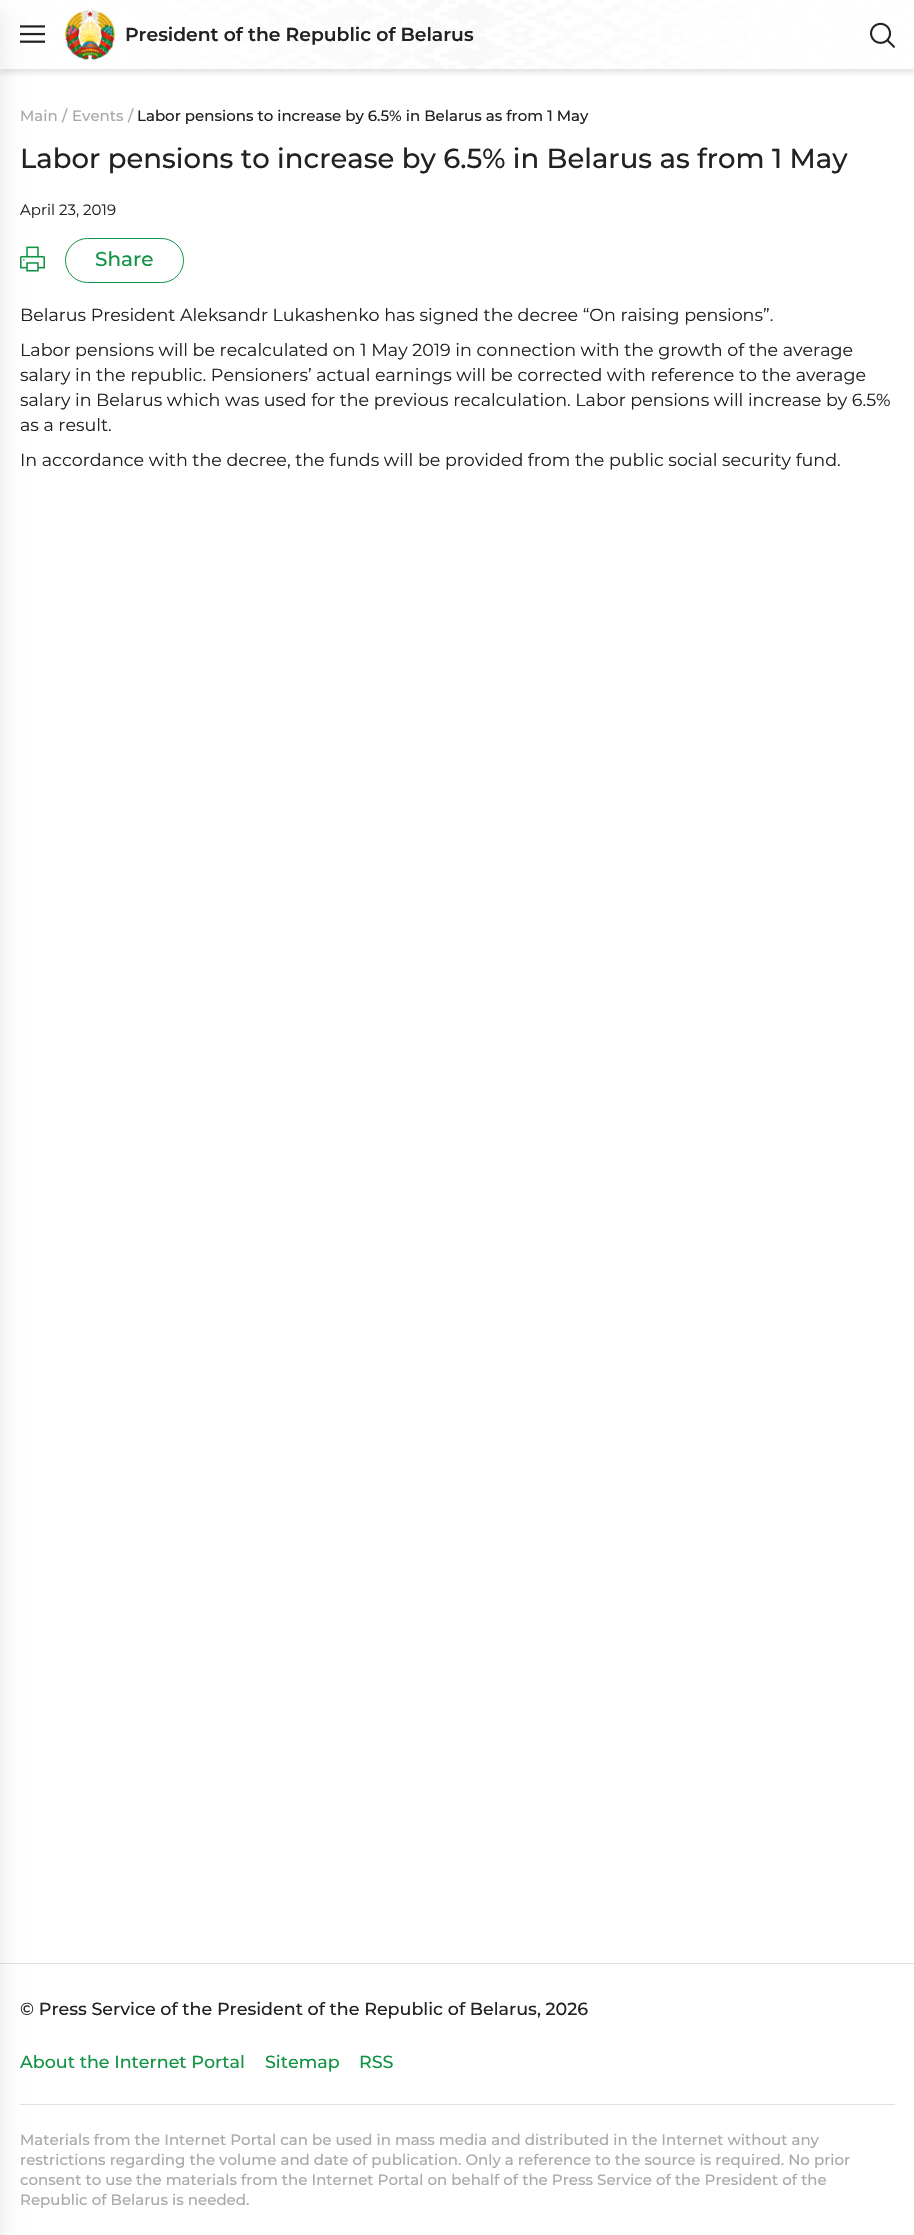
static SkFont makeFont(const char* family, int weight, float size, bool italic = false) {
  SkFontStyle style(weight, SkFontStyle::kNormal_Width,
    italic ? SkFontStyle::kItalic_Slant : SkFontStyle::kUpright_Slant);
  SkFont result(fontMgr->matchFamilyStyle(family, style), size);
  result.setSubpixel(true);
  return result;
}

static void text(SkCanvas* c, const char* s, float x, float y, const SkFont& font, SkColor color) {
  SkPaint ink(SkColor4f::FromColor(color));
  ink.setAntiAlias(true);
  c->drawString(s, x, y, font, ink);
}

static void box(SkCanvas* c, float l, float t, float r, float b, SkColor color) {
  SkPaint ink(SkColor4f::FromColor(color));
  ink.setAntiAlias(true);
  c->drawRect(SkRect::MakeLTRB(l, t, r, b), ink);
}

static void picture(SkCanvas* c, const char* path, float l, float t, float r, float b) {
  auto image = SkImages::DeferredFromEncodedData(SkData::MakeFromFileName(path));
  c->drawImageRect(image, SkRect::MakeLTRB(l, t, r, b), SkSamplingOptions());
}

void draw(SkCanvas* c) {
  SkPaint paint;
  paint.setAntiAlias(true);
  c->clear(0xffffffff);
  paint.setColor(0x1f222222);
  paint.setMaskFilter(SkMaskFilter::MakeBlur(kNormal_SkBlurStyle, 2.5f));
  c->drawRect(SkRect::MakeLTRB(0, 3, 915, 73), paint);
  paint.setMaskFilter(nullptr);
  picture(c, "img_02.png", 0, 0, 914, 69);
  picture(c, "img_05.png", 20, 246, 45, 272);
  box(c, 0, 1963, 914, 1964, 0xffe0e0e0);
  box(c, 20, 2104, 895, 2105, 0xffe0e0e0);
  paint.setColor(0x1a000000);
  paint.setMaskFilter(SkMaskFilter::MakeBlur(kNormal_SkBlurStyle, 11));
  c->drawRect(SkRect::MakeLTRB(-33, 10, 0, 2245), paint);
  paint.setMaskFilter(nullptr);
  picture(c, "img_01.png", 20, 25, 45, 43);
  picture(c, "img_03.png", 65, 10, 115, 60);
  SkFont face1 = makeFont("Montserrat", 600, 18.75f);
  text(c, "President of the Republic of Belarus", 125, 41, face1, 0xff222222);
  picture(c, "img_04.png", 870, 22, 895, 48);
  SkFont face2 = makeFont("Montserrat", 500, 15);
  text(c, "Main", 20, 121, face2, 0xffaaaaaa);
  text(c, "/", 62, 121, face2, 0xffaaaaaa);
  text(c, "Events", 72, 121, face2, 0xffaaaaaa);
  text(c, "/", 128, 121, face2, 0xffaaaaaa);
  text(c, "Labor pensions to increase by 6.5% in Belarus as from 1 May", 137, 121, face2, 0xff222222);
  SkFont face3 = makeFont("Montserrat", 500, 27.5f);
  text(c, "Labor pensions to increase by 6.5% in Belarus as from 1 May", 20, 168, face3, 0xff222222);
  SkFont face4 = makeFont("Montserrat", 400, 15);
  text(c, "April 23, 2019", 20, 215, face4, 0xff222222);
  paint.setStyle(SkPaint::kStroke_Style);
  paint.setStrokeWidth(1);
  paint.setColor(0xff139345);
  c->drawRoundRect(SkRect::MakeLTRB(65.5f, 238.5f, 183.5f, 282.5f), 22, 22, paint);
  SkFont face5 = makeFont("Montserrat", 500, 20);
  text(c, "Share", 95, 266, face5, 0xff139345);
  SkFont face6 = makeFont("Montserrat", 400, 17.5f);
  text(c, "Belarus President Aleksandr Lukashenko has signed the decree “On raising pensions”.", 20, 321, face6, 0xff222222);
  text(c, "Labor pensions will be recalculated on 1 May 2019 in connection with the growth of the average", 20, 356, face6, 0xff222222);
  text(c, "salary in the republic. Pensioners’ actual earnings will be corrected with reference to the average", 20, 381, face6, 0xff222222);
  text(c, "salary in Belarus which was used for the previous recalculation. Labor pensions will increase by 6.5%", 20, 406, face6, 0xff222222);
  text(c, "as a result.", 20, 431, face6, 0xff222222);
  text(c, "In accordance with the decree, the funds will be provided from the public social security fund.", 20, 466, face6, 0xff222222);
  SkFont face7 = makeFont("Montserrat", 500, 17.5f);
  text(c, "© Press Service of the President of the Republic of Belarus, 2026", 20, 2015, face7, 0xff222222);
  text(c, "About the Internet Portal", 20, 2068, face7, 0xff139345);
  text(c, "Sitemap", 265, 2068, face7, 0xff139345);
  text(c, "RSS", 359, 2068, face7, 0xff139345);
  text(c, "Materials from the Internet Portal can be used in mass media and distributed in the Internet without any", 20, 2145, face2, 0xffaaaaaa);
  text(c, "restrictions regarding the volume and date of publication. Only a reference to the source is required. No prior", 20, 2165, face2, 0xffaaaaaa);
  text(c, "consent to use the materials from the Internet Portal on behalf of the Press Service of the President of the", 20, 2185, face2, 0xffaaaaaa);
  text(c, "Republic of Belarus is needed.", 20, 2205, face2, 0xffaaaaaa);
}
